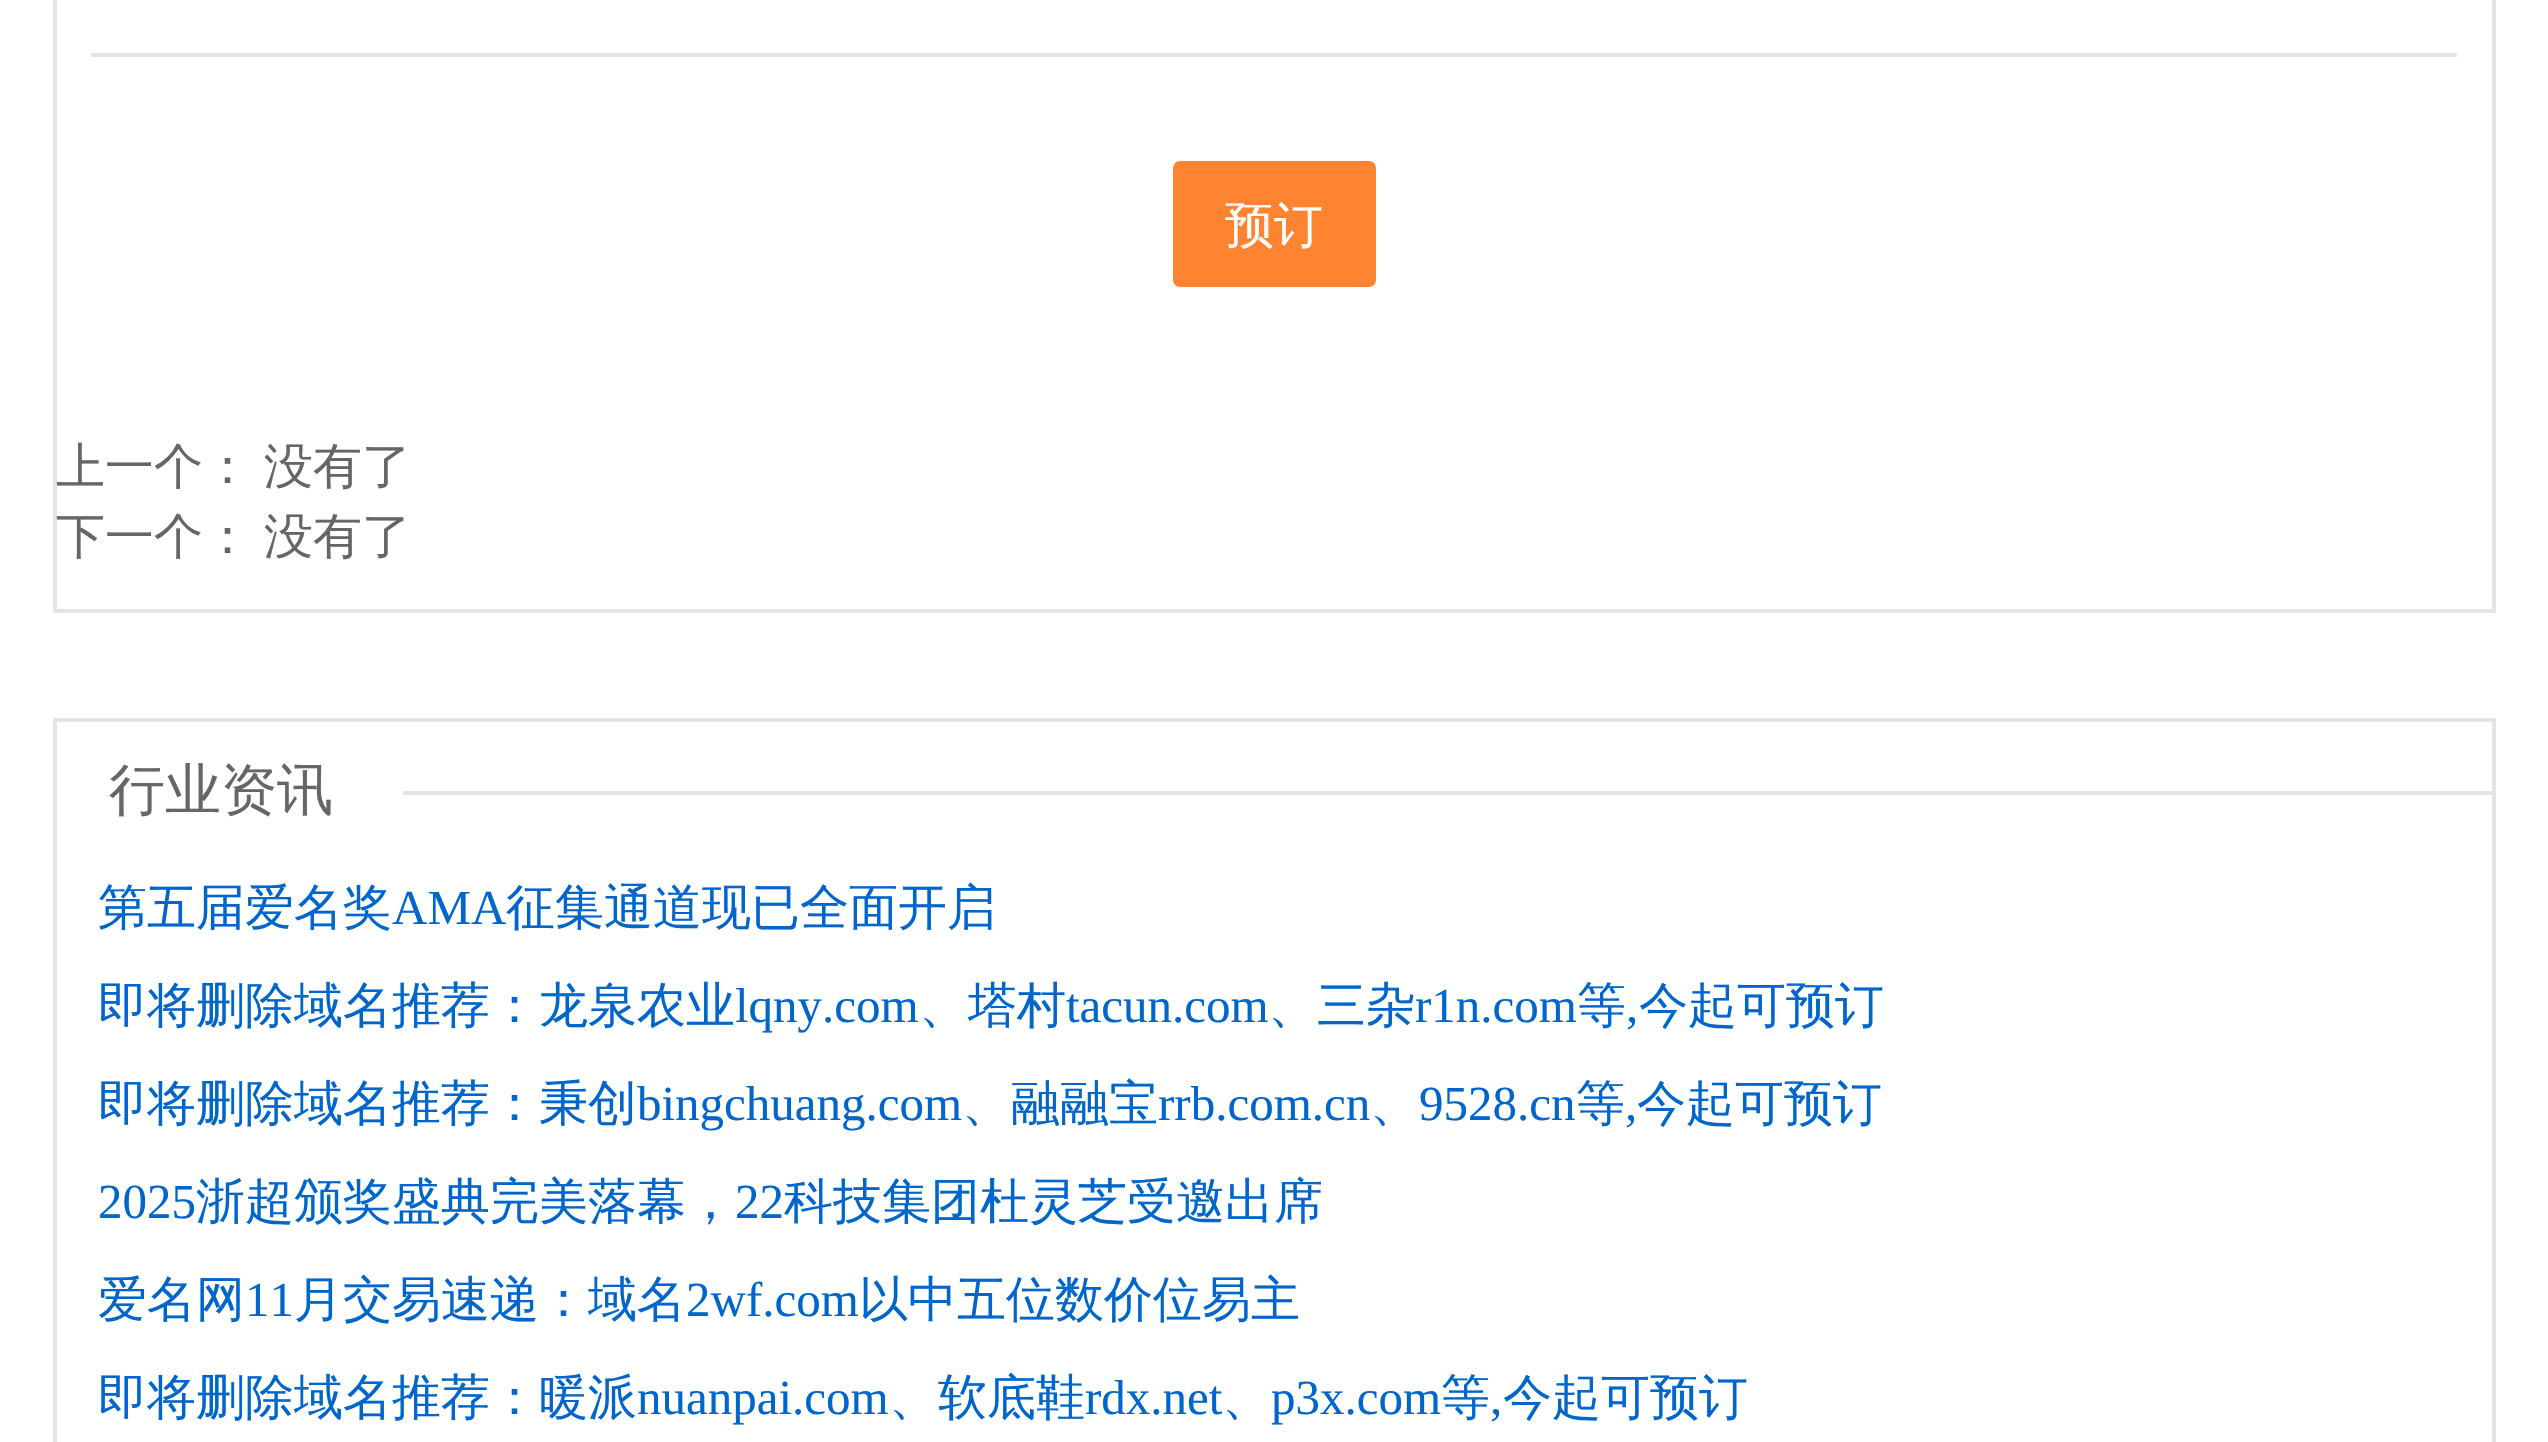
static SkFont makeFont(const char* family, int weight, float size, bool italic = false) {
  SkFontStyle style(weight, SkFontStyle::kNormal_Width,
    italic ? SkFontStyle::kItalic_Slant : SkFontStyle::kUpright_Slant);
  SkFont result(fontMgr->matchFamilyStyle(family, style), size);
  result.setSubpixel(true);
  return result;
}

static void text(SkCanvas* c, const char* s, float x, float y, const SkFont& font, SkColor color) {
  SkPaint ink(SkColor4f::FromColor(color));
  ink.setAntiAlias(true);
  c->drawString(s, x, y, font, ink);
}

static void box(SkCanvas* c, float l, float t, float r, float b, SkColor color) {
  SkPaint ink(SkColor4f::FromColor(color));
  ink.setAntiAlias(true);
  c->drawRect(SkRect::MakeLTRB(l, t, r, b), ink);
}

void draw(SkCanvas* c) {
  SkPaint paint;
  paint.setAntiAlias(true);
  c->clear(0xffffffff);
  paint.setStyle(SkPaint::kStroke_Style);
  paint.setStrokeWidth(4);
  paint.setColor(0xffe4e4e4);
  c->drawRect(SkRect::MakeLTRB(55, -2, 2494, 611), paint);
  box(c, 91, 53, 2457, 57, 0xffe4e4e4);
  paint.setStyle(SkPaint::kFill_Style);
  paint.setColor(0xfffe8431);
  c->drawRoundRect(SkRect::MakeLTRB(1175, 163, 1374, 285), 5, 5, paint);
  paint.setStyle(SkPaint::kStroke_Style);
  c->drawRoundRect(SkRect::MakeLTRB(1175, 163, 1374, 285), 5, 5, paint);
  SkFont face1 = makeFont("WenQuanYi Zen Hei", 500, 49);
  text(c, "预订", 1225, 242, face1, 0xffffffff);
  text(c, "上一个：", 56, 483, face1, 0xff666666);
  text(c, "没有了", 264, 483, face1, 0xff666666);
  text(c, "下一个：", 56, 553, face1, 0xff666666);
  text(c, "没有了", 264, 553, face1, 0xff666666);
  paint.setColor(0xffe4e4e4);
  c->drawRect(SkRect::MakeLTRB(55, 720, 2494, 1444), paint);
  SkFont face2 = makeFont("WenQuanYi Zen Hei", 500, 56);
  text(c, "行业资讯", 109, 809, face2, 0xff666666);
  box(c, 403, 791, 2492, 795, 0xffe4e4e4);
  text(c, "第五届爱名奖", 98, 924, face1, 0xff0066cc);
  SkFont face3 = makeFont("Liberation Serif", 400, 49);
  text(c, "AMA", 392, 924, face3, 0xff0066cc);
  text(c, "征集通道现已全面开启", 506, 924, face1, 0xff0066cc);
  text(c, "即将删除域名推荐：龙泉农业", 98, 1022, face1, 0xff0066cc);
  text(c, "lqny.com", 735, 1022, face3, 0xff0066cc);
  text(c, "、塔村", 919, 1022, face1, 0xff0066cc);
  text(c, "tacun.com", 1066, 1022, face3, 0xff0066cc);
  text(c, "、三杂", 1268, 1022, face1, 0xff0066cc);
  text(c, "r1n.com", 1415, 1022, face3, 0xff0066cc);
  text(c, "等", 1577, 1022, face1, 0xff0066cc);
  text(c, ",", 1626, 1022, face3, 0xff0066cc);
  text(c, "今起可预订", 1639, 1022, face1, 0xff0066cc);
  text(c, "即将删除域名推荐：秉创", 98, 1120, face1, 0xff0066cc);
  text(c, "bingchuang.com", 637, 1120, face3, 0xff0066cc);
  text(c, "、融融宝", 962, 1120, face1, 0xff0066cc);
  text(c, "rrb.com.cn", 1158, 1120, face3, 0xff0066cc);
  text(c, "、", 1370, 1120, face1, 0xff0066cc);
  text(c, "9528.cn", 1419, 1120, face3, 0xff0066cc);
  text(c, "等", 1576, 1120, face1, 0xff0066cc);
  text(c, ",", 1625, 1120, face3, 0xff0066cc);
  text(c, "今起可预订", 1637, 1120, face1, 0xff0066cc);
  text(c, "2025", 98, 1218, face3, 0xff0066cc);
  text(c, "浙超颁奖盛典完美落幕，", 196, 1218, face1, 0xff0066cc);
  text(c, "22", 735, 1218, face3, 0xff0066cc);
  text(c, "科技集团杜灵芝受邀出席", 784, 1218, face1, 0xff0066cc);
  text(c, "爱名网", 98, 1316, face1, 0xff0066cc);
  text(c, "11", 245, 1316, face3, 0xff0066cc);
  text(c, "月交易速递：域名", 294, 1316, face1, 0xff0066cc);
  text(c, "2wf.com", 686, 1316, face3, 0xff0066cc);
  text(c, "以中五位数价位易主", 859, 1316, face1, 0xff0066cc);
  text(c, "即将删除域名推荐：暖派", 98, 1414, face1, 0xff0066cc);
  text(c, "nuanpai.com", 637, 1414, face3, 0xff0066cc);
  text(c, "、软底鞋", 889, 1414, face1, 0xff0066cc);
  text(c, "rdx.net", 1085, 1414, face3, 0xff0066cc);
  text(c, "、", 1222, 1414, face1, 0xff0066cc);
  text(c, "p3x.com", 1271, 1414, face3, 0xff0066cc);
  text(c, "等", 1441, 1414, face1, 0xff0066cc);
  text(c, ",", 1490, 1414, face3, 0xff0066cc);
  text(c, "今起可预订", 1503, 1414, face1, 0xff0066cc);
}
